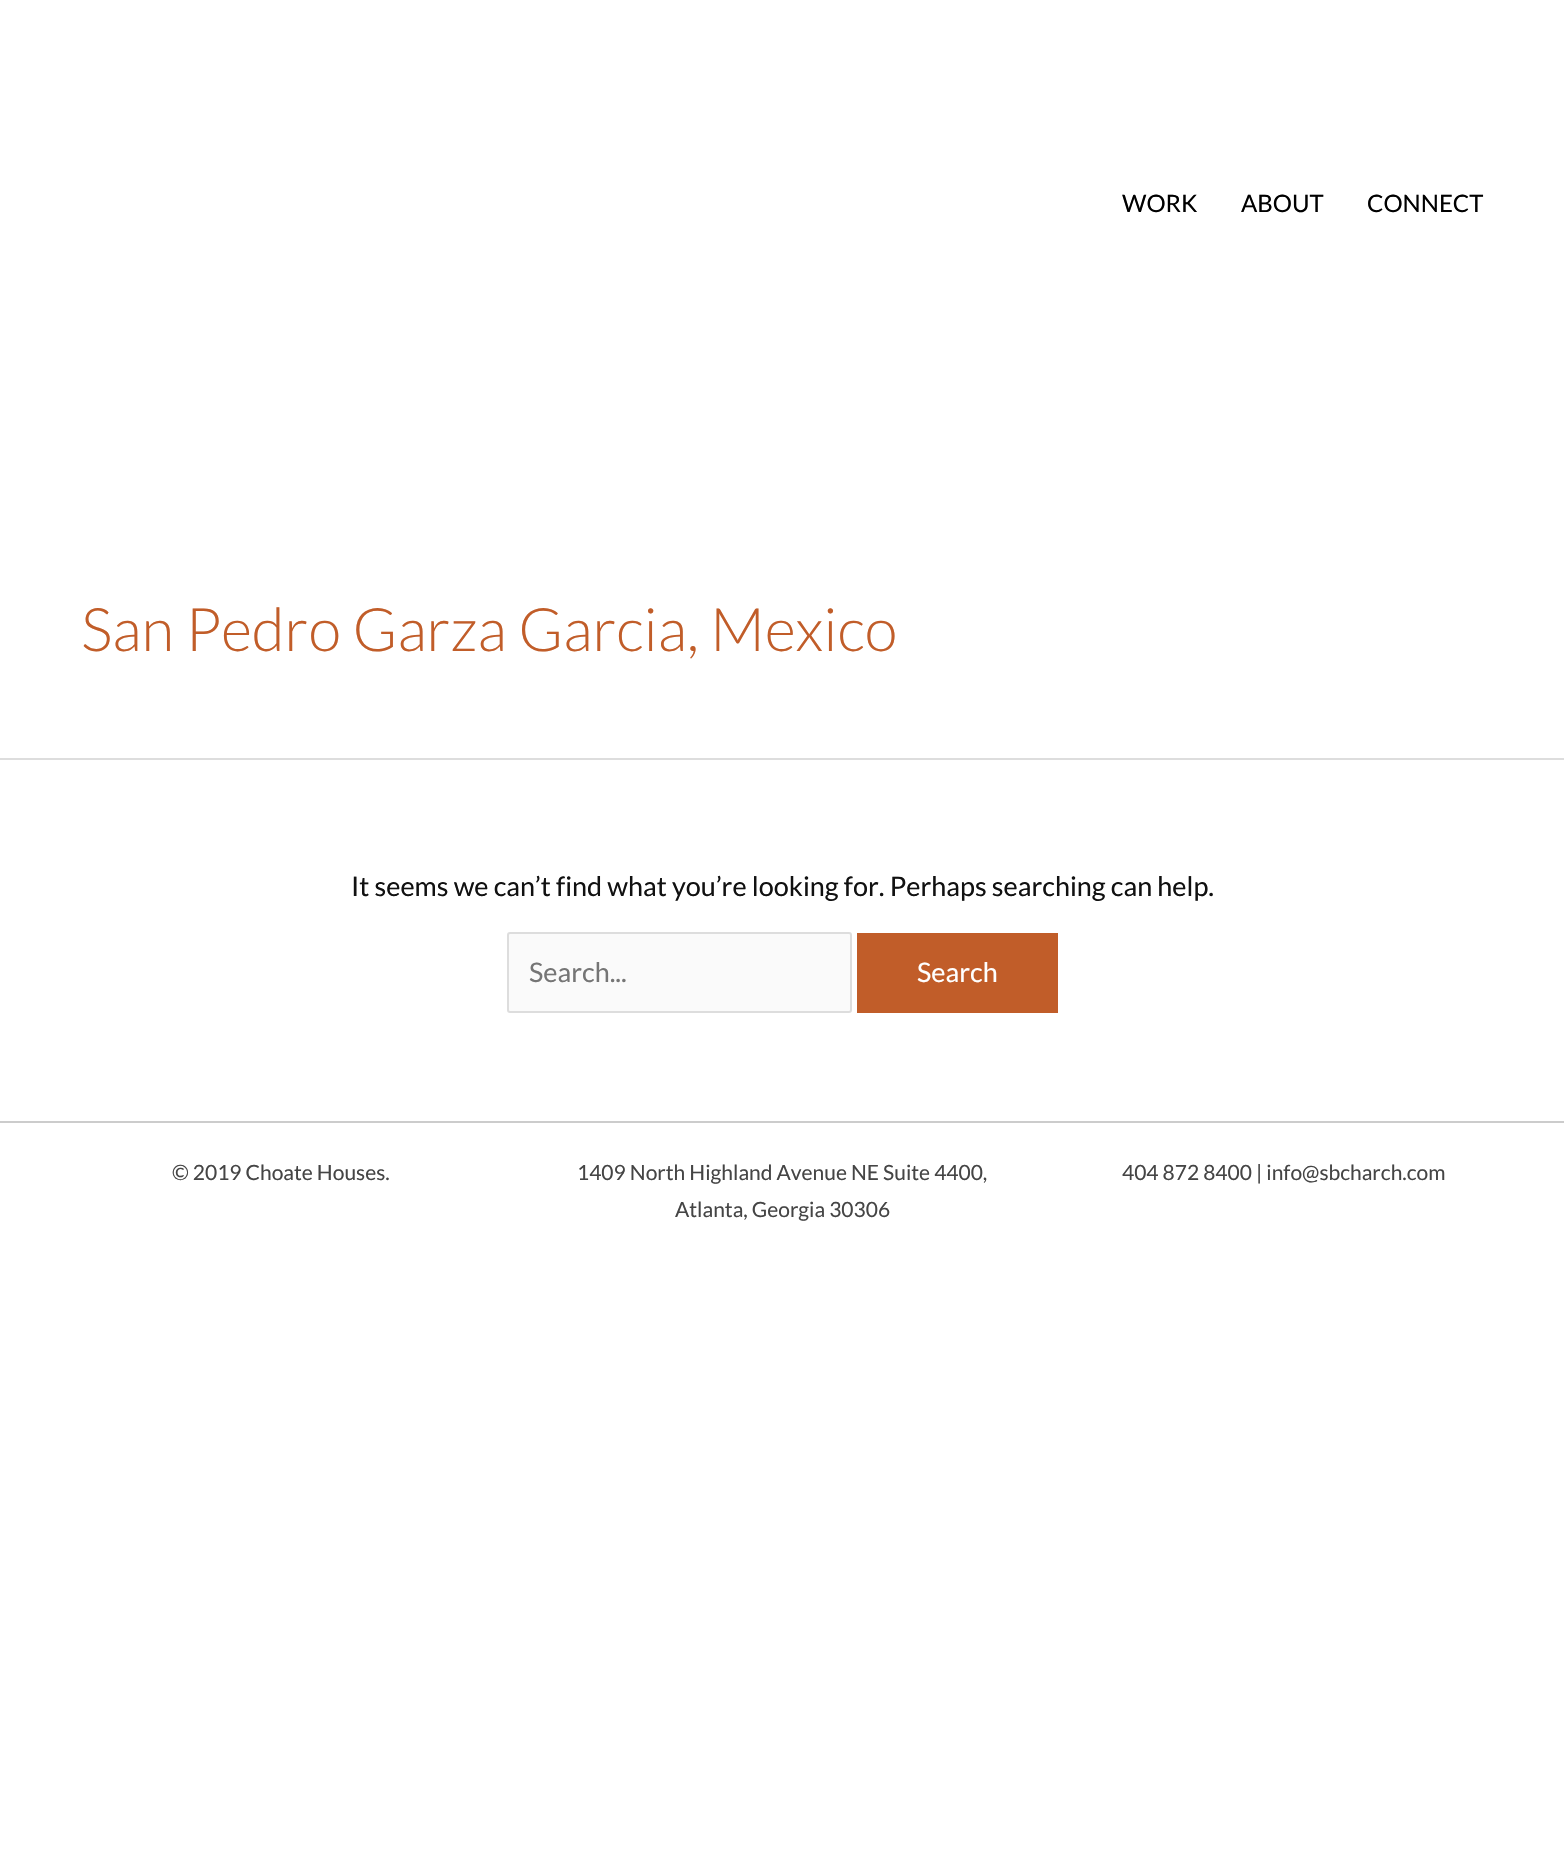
static SkFont makeFont(const char* family, int weight, float size, bool italic = false) {
  SkFontStyle style(weight, SkFontStyle::kNormal_Width,
    italic ? SkFontStyle::kItalic_Slant : SkFontStyle::kUpright_Slant);
  SkFont result(fontMgr->matchFamilyStyle(family, style), size);
  result.setSubpixel(true);
  return result;
}

static void text(SkCanvas* c, const char* s, float x, float y, const SkFont& font, SkColor color) {
  SkPaint ink(SkColor4f::FromColor(color));
  ink.setAntiAlias(true);
  c->drawString(s, x, y, font, ink);
}

static void box(SkCanvas* c, float l, float t, float r, float b, SkColor color) {
  SkPaint ink(SkColor4f::FromColor(color));
  ink.setAntiAlias(true);
  c->drawRect(SkRect::MakeLTRB(l, t, r, b), ink);
}

void draw(SkCanvas* c) {
  SkPaint paint;
  paint.setAntiAlias(true);
  c->clear(0xffffffff);
  SkFont face1 = makeFont("Lato", 400, 24);
  text(c, "WORK", 1122, 212, face1, 0xff000000);
  text(c, "ABOUT", 1241, 212, face1, 0xff000000);
  text(c, "CONNECT", 1367, 212, face1, 0xff000000);
  box(c, 0, 758, 1564, 760, 0xffdddddd);
  SkFont face2 = makeFont("Lato", 300, 60);
  text(c, "San Pedro Garza Garcia, Mexico", 81, 651, face2, 0xffc15d29);
  SkFont face3 = makeFont("Lato", 400, 27);
  text(c, "It seems we can’t find what you’re looking for. Perhaps searching can help.", 351, 896, face3, 0xff111111);
  paint.setColor(0xfffafafa);
  c->drawRoundRect(SkRect::MakeLTRB(508, 933, 851, 1012), 2, 2, paint);
  paint.setStyle(SkPaint::kStroke_Style);
  paint.setStrokeWidth(2);
  paint.setColor(0xffdddddd);
  c->drawRoundRect(SkRect::MakeLTRB(508, 933, 851, 1012), 2, 2, paint);
  text(c, "Search...", 529, 982, face3, 0xff757575);
  box(c, 857, 933, 1058, 1013, 0xffc15d29);
  text(c, "Search", 917, 982, face3, 0xffffffff);
  box(c, 0, 1121, 1564, 1123, 0xffcccccc);
  SkFont face4 = makeFont("Lato", 400, 21);
  text(c, "© 2019 Choate Houses.", 172, 1180, face4, 0xff454545);
  text(c, "1409 North Highland Avenue NE Suite 4400,", 577, 1180, face4, 0xff454545);
  text(c, "Atlanta, Georgia 30306", 675, 1217, face4, 0xff454545);
  text(c, "404 872 8400 | info@sbcharch.com", 1122, 1180, face4, 0xff454545);
}
